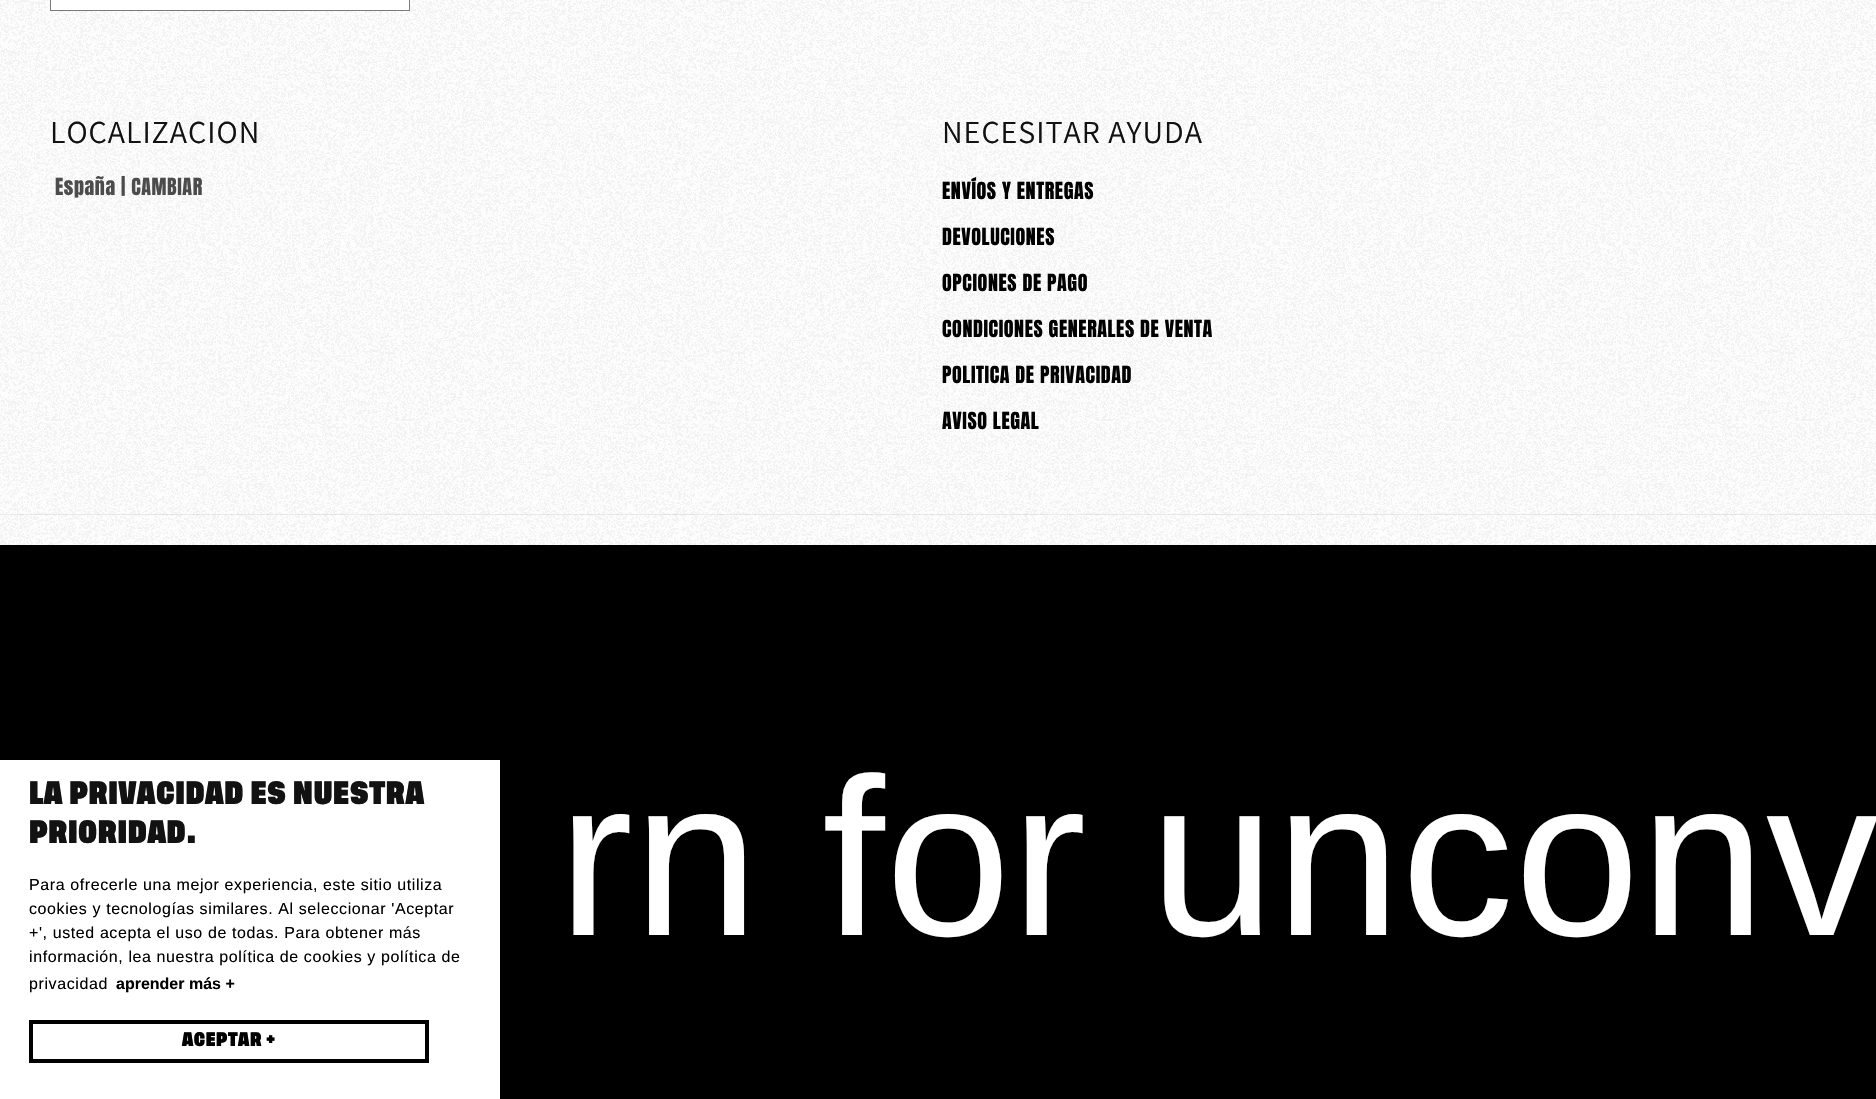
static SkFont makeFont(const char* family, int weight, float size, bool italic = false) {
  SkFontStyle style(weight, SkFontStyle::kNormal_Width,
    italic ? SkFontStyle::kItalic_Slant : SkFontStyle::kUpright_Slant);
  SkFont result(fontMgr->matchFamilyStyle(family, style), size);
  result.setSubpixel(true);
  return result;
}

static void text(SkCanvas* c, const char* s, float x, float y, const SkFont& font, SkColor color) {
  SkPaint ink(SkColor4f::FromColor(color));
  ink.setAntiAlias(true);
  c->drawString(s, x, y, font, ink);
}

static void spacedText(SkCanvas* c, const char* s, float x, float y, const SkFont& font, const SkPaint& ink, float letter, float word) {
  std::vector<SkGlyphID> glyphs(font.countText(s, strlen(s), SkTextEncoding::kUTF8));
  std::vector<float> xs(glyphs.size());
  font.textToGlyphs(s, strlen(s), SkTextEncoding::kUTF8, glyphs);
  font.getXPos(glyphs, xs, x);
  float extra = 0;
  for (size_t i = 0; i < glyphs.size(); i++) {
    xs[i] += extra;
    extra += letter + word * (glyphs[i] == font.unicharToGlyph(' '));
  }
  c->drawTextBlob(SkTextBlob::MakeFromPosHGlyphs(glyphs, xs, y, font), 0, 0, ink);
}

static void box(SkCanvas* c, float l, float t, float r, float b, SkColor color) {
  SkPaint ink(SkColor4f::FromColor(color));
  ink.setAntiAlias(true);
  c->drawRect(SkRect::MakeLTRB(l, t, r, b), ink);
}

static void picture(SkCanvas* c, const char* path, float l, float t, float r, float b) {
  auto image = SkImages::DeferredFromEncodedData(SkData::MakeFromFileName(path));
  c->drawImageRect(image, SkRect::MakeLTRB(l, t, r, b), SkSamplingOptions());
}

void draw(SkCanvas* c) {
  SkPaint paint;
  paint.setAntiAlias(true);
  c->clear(0xffffffff);
  picture(c, "img_01.png", 0, 0, 1876, 545);
  box(c, 51, 0, 409, 10, 0xffffffff);
  paint.setStyle(SkPaint::kStroke_Style);
  paint.setStrokeWidth(1);
  paint.setColor(0x8c121212);
  c->drawRect(SkRect::MakeLTRB(50.5f, -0.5f, 409.5f, 10.5f), paint);
  SkFont face1 = makeFont("Assistant", 400, 32);
  paint.setStyle(SkPaint::kFill_Style);
  paint.setColor(0xff121212);
  spacedText(c, "LOCALIZACION", 50, 143, face1, paint, 1, 0);
  SkFont face2 = makeFont("Anton", 400, 20);
  paint.setColor(0xff4c4c4c);
  spacedText(c, "España | CAMBIAR", 55, 195, face2, paint, 0.6f, 0);
  paint.setColor(0xff121212);
  spacedText(c, "NECESITAR AYUDA", 942, 143, face1, paint, 1, 0);
  paint.setColor(0xff000000);
  spacedText(c, "ENVÍOS Y ENTREGAS", 942, 199, face2, paint, 0.6f, 0);
  spacedText(c, "DEVOLUCIONES", 942, 245, face2, paint, 0.6f, 0);
  spacedText(c, "OPCIONES DE PAGO", 942, 291, face2, paint, 0.6f, 0);
  spacedText(c, "CONDICIONES GENERALES DE VENTA", 942, 337, face2, paint, 0.6f, 0);
  spacedText(c, "POLITICA DE PRIVACIDAD", 942, 383, face2, paint, 0.6f, 0);
  spacedText(c, "AVISO LEGAL", 942, 429, face2, paint, 0.6f, 0);
  box(c, 0, 514, 1876, 515, 0x14121212);
  box(c, 0, 545, 1876, 1099, 0xff000000);
  SkFont face3 = makeFont("Liberation Sans", 400, 225);
  paint.setColor(0xffffffff);
  spacedText(c, "rn for unconv", 558, 935, face3, paint, 0.6f, 0);
  box(c, 0, 760, 500, 1099, 0xffffffff);
  SkFont face4 = makeFont("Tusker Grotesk", 700, 24);
  paint.setColor(0xff121212);
  spacedText(c, "LA PRIVACIDAD ES NUESTRA", 29, 804, face4, paint, 0.6f, 0);
  spacedText(c, "PRIORIDAD.", 29, 843, face4, paint, 0.6f, 0);
  SkFont face5 = makeFont("Liberation Sans", 400, 16);
  paint.setColor(0xff000000);
  spacedText(c, "Para ofrecerle una mejor experiencia, este sitio utiliza", 29, 890, face5, paint, 0.6f, 0);
  spacedText(c, "cookies y tecnologías similares. Al seleccionar 'Aceptar", 29, 914, face5, paint, 0.6f, 0);
  spacedText(c, "+', usted acepta el uso de todas. Para obtener más", 29, 938, face5, paint, 0.6f, 0);
  spacedText(c, "información, lea nuestra política de cookies y política de", 29, 962, face5, paint, 0.6f, 0);
  spacedText(c, "privacidad", 29, 989, face5, paint, 0.6f, 0);
  SkFont face6 = makeFont("Liberation Sans", 700, 16);
  text(c, "aprender más +", 116, 989, face6, 0xff000000);
  paint.setStyle(SkPaint::kStroke_Style);
  paint.setStrokeWidth(4);
  c->drawRect(SkRect::MakeLTRB(31, 1022, 427, 1061), paint);
  SkFont face7 = makeFont("Tusker Grotesk", 700, 14.5f);
  paint.setStyle(SkPaint::kFill_Style);
  spacedText(c, "ACEPTAR +", 182, 1046, face7, paint, 0.6f, 0);
}
